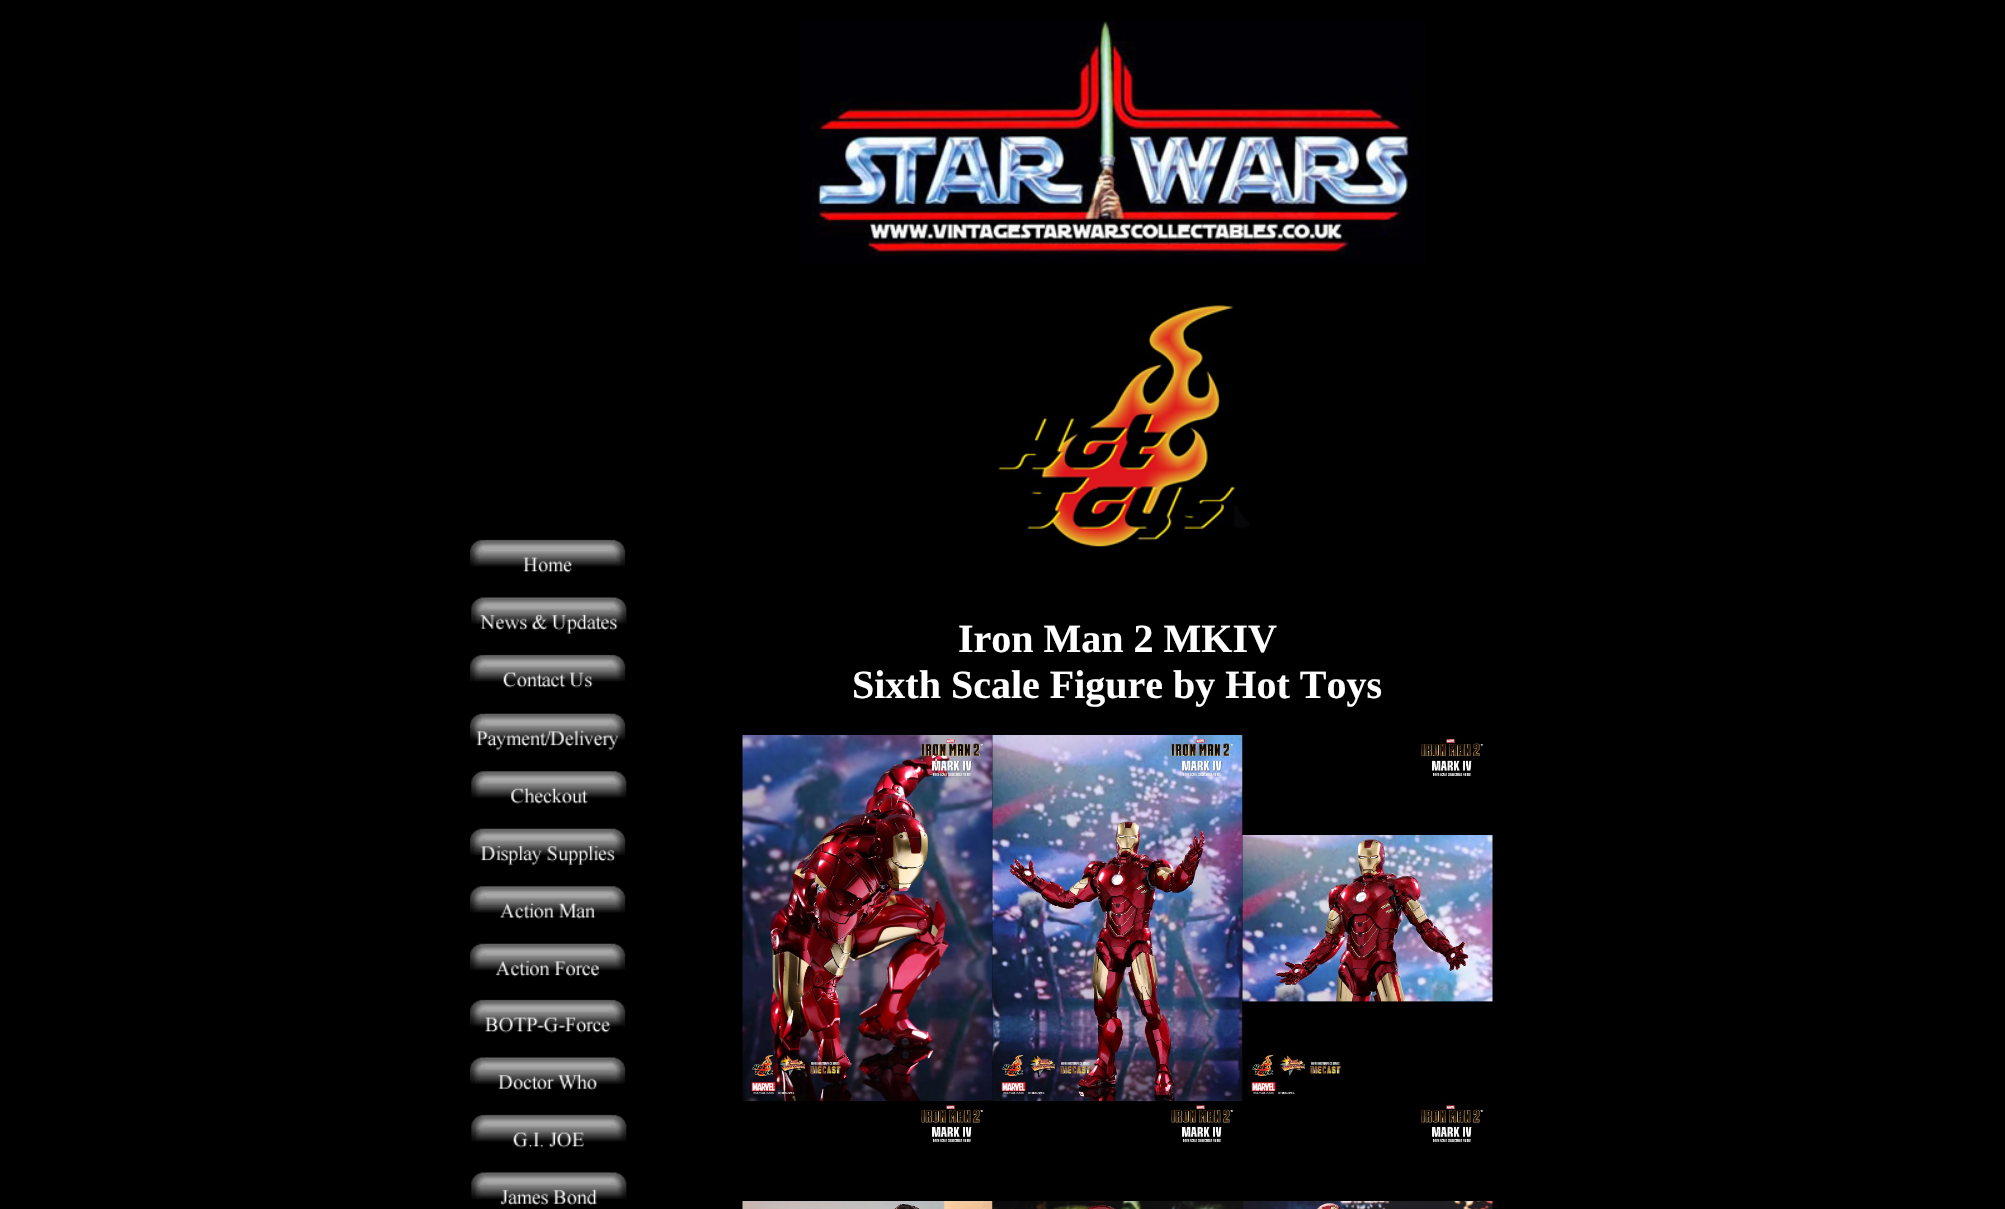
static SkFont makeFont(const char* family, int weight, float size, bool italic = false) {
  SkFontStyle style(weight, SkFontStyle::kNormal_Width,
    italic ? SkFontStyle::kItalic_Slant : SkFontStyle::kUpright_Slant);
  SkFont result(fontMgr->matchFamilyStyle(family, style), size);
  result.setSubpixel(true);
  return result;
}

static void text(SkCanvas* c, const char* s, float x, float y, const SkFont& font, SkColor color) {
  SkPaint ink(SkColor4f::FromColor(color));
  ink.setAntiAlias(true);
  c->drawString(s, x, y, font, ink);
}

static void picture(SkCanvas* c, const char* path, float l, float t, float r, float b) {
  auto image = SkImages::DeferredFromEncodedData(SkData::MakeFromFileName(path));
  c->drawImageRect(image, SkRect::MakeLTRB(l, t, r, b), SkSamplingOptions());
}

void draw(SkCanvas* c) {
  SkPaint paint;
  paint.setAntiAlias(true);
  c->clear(0xff000000);
  picture(c, "img_01.png", 800, 21, 1426, 263);
  picture(c, "img_02.png", 470, 539, 626, 573);
  picture(c, "img_03.png", 471, 597, 627, 634);
  picture(c, "img_04.png", 470, 654, 626, 688);
  picture(c, "img_05.png", 470, 713, 626, 751);
  picture(c, "img_06.png", 471, 771, 627, 804);
  picture(c, "img_07.png", 470, 828, 626, 866);
  picture(c, "img_08.png", 470, 886, 626, 919);
  picture(c, "img_09.png", 470, 943, 626, 977);
  picture(c, "img_10.png", 470, 999, 626, 1033);
  picture(c, "img_11.png", 470, 1057, 626, 1091);
  picture(c, "img_12.png", 471, 1114, 627, 1148);
  picture(c, "img_13.png", 471, 1172, 627, 1206);
  picture(c, "img_14.png", 998, 305, 1251, 547);
  SkFont face1 = makeFont("Liberation Serif", 700, 40);
  text(c, "Iron Man 2 MKIV", 958, 652, face1, 0xffffffff);
  text(c, "Sixth Scale Figure by Hot Toys", 852, 698, face1, 0xffffffff);
  picture(c, "img_15.png", 742, 735, 993, 1102);
  picture(c, "img_16.png", 992, 735, 1243, 1102);
  picture(c, "img_17.png", 1242, 735, 1493, 1101);
  picture(c, "img_18.png", 742, 1101, 993, 1209);
  picture(c, "img_19.png", 992, 1101, 1243, 1209);
  picture(c, "img_20.png", 1242, 1101, 1493, 1209);
}
